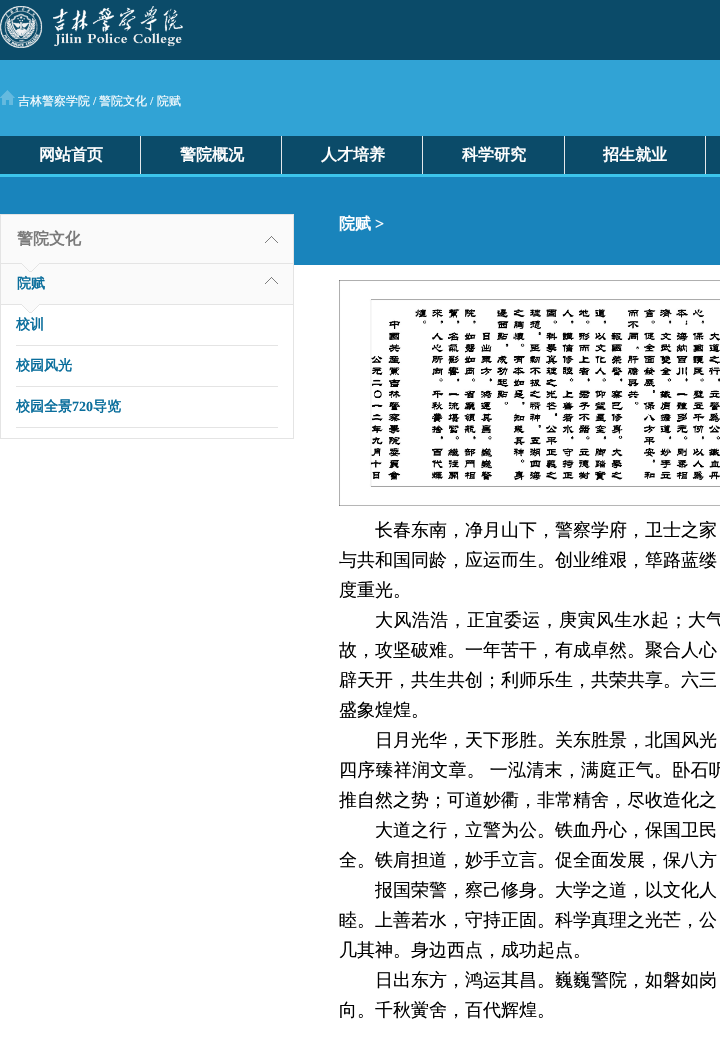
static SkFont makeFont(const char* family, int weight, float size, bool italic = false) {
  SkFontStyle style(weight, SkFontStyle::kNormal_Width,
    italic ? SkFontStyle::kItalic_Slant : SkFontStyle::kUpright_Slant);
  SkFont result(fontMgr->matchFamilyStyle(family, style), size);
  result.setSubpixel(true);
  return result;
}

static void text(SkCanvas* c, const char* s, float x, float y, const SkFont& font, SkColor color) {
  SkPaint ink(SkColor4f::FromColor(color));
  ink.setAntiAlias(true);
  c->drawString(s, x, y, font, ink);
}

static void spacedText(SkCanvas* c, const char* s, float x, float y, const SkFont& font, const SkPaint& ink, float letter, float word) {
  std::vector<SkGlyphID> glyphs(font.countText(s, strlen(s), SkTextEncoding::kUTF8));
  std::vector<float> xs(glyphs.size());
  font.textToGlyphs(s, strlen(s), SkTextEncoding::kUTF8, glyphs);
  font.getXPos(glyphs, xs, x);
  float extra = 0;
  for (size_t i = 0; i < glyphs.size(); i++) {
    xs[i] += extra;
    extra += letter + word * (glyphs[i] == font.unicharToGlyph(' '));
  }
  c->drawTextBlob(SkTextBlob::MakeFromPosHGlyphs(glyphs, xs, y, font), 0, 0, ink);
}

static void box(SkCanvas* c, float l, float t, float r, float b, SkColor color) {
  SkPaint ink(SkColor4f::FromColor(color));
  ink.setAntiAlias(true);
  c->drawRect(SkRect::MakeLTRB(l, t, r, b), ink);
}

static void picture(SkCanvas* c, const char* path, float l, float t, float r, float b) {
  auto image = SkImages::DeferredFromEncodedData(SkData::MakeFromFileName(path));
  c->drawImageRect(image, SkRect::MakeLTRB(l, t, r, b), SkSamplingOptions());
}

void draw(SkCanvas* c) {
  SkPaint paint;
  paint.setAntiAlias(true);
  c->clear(0xff0b4b69);
  picture(c, "img_01.png", 0, 6, 183, 48);
  box(c, 0, 60, 720, 136, 0xff31a3d5);
  picture(c, "img_02.png", 0, 90, 15, 105);
  SkFont face1 = makeFont("WenQuanYi Zen Hei", 500, 12);
  text(c, "吉林警察学院", 18, 105, face1, 0xffffffff);
  SkFont face2 = makeFont("Liberation Serif", 400, 12);
  text(c, "/", 93, 105, face2, 0xffffffff);
  text(c, "警院文化", 99, 105, face1, 0xffffffff);
  text(c, "/", 150, 105, face2, 0xffffffff);
  text(c, "院赋", 157, 105, face1, 0xffffffff);
  box(c, 140, 136, 141, 174, 0xffe4e8eb);
  SkFont face3 = makeFont("WenQuanYi Zen Hei", 700, 16);
  text(c, "网站首页", 39, 160, face3, 0xffffffff);
  box(c, 281, 136, 282, 174, 0xffe4e8eb);
  text(c, "警院概况", 180, 160, face3, 0xffffffff);
  box(c, 422, 136, 423, 174, 0xffe4e8eb);
  text(c, "人才培养", 321, 160, face3, 0xffffffff);
  box(c, 564, 136, 565, 174, 0xffe4e8eb);
  text(c, "科学研究", 462, 160, face3, 0xffffffff);
  box(c, 705, 136, 706, 174, 0xffe4e8eb);
  text(c, "招生就业", 603, 160, face3, 0xffffffff);
  box(c, 0, 174, 720, 177, 0xff3cc5eb);
  box(c, 0, 177, 720, 214, 0xff1984bc);
  box(c, 0, 265, 720, 1041, 0xffffffff);
  paint.setStyle(SkPaint::kStroke_Style);
  paint.setStrokeWidth(1);
  paint.setColor(0xffe4e4e4);
  c->drawRect(SkRect::MakeLTRB(0.5f, 214.5f, 293.5f, 438.5f), paint);
  box(c, 1, 263, 293, 264, 0xffe4e4e4);
  box(c, 1, 215, 293, 263, 0xfffafafa);
  text(c, "警院文化", 17, 244, face3, 0xff7a7a7a);
  picture(c, "img_03.png", 265, 236, 278, 243);
  box(c, 1, 264, 293, 304, 0xfffafafa);
  picture(c, "img_04.png", 22, 263, 39, 272);
  box(c, 1, 304, 293, 305, 0xffe4e4e4);
  SkFont face4 = makeFont("WenQuanYi Zen Hei", 700, 14);
  text(c, "院赋", 17, 288, face4, 0xff0a6e9c);
  picture(c, "img_03.png", 265, 277, 278, 284);
  picture(c, "img_05.png", 22, 304, 39, 313);
  box(c, 16, 345, 278, 346, 0xffe4e4e4);
  text(c, "校训", 16, 329, face4, 0xff0a6e9c);
  box(c, 16, 386, 278, 387, 0xffe4e4e4);
  text(c, "校园风光", 16, 370, face4, 0xff0a6e9c);
  box(c, 16, 427, 278, 428, 0xffe4e4e4);
  text(c, "校园全景", 16, 411, face4, 0xff0a6e9c);
  SkFont face5 = makeFont("Liberation Serif", 700, 14);
  text(c, "720", 72, 411, face5, 0xff0a6e9c);
  text(c, "导览", 93, 411, face4, 0xff0a6e9c);
  box(c, 294, 214, 720, 265, 0xff1984bc);
  text(c, "院赋", 339, 229, face3, 0xffffffff);
  SkFont face6 = makeFont("Liberation Serif", 700, 16);
  text(c, ">", 375, 229, face6, 0xffffffff);
  picture(c, "img_06.png", 339, 280, 720, 506);
  SkFont face7 = makeFont("WenQuanYi Zen Hei", 500, 18);
  text(c, "长春东南，净月山下，警察学府，卫士之家", 375, 536, face7, 0xff000000);
  text(c, "与共和国同龄，应运而生。创业维艰，筚路蓝缕", 339, 566, face7, 0xff000000);
  text(c, "度重光。", 339, 596, face7, 0xff000000);
  paint.setStyle(SkPaint::kFill_Style);
  paint.setColor(0xff000000);
  spacedText(c, "大风浩浩，正宜委运，庚寅风生水起；大气", 375, 626, face7, paint, 0.4f, 0);
  text(c, "故，攻坚破难。一年苦干，有成卓然。聚合人心", 339, 656, face7, 0xff000000);
  text(c, "辟天开，共生共创；利师乐生，共荣共享。六三", 339, 686, face7, 0xff000000);
  text(c, "盛象煌煌。", 339, 716, face7, 0xff000000);
  text(c, "日月光华，天下形胜。关东胜景，北国风光", 375, 746, face7, 0xff000000);
  spacedText(c, "四序臻祥润文章。 一泓清末，满庭正气。卧石听", 339, 776, face7, paint, 0.25f, -1);
  text(c, "推自然之势；可道妙衢，非常精舍，尽收造化之", 339, 806, face7, 0xff000000);
  text(c, "大道之行，立警为公。铁血丹心，保国卫民", 375, 836, face7, 0xff000000);
  text(c, "全。铁肩担道，妙手立言。促全面发展，保八方", 339, 866, face7, 0xff000000);
  text(c, "报国荣警，察己修身。大学之道，以文化人", 375, 896, face7, 0xff000000);
  text(c, "睦。上善若水，守持正固。科学真理之光芒，公", 339, 926, face7, 0xff000000);
  text(c, "几其神。身边西点，成功起点。", 339, 956, face7, 0xff000000);
  text(c, "日出东方，鸿运其昌。巍巍警院，如磐如岗", 375, 986, face7, 0xff000000);
  text(c, "向。千秋黉舍，百代辉煌。", 339, 1016, face7, 0xff000000);
}
